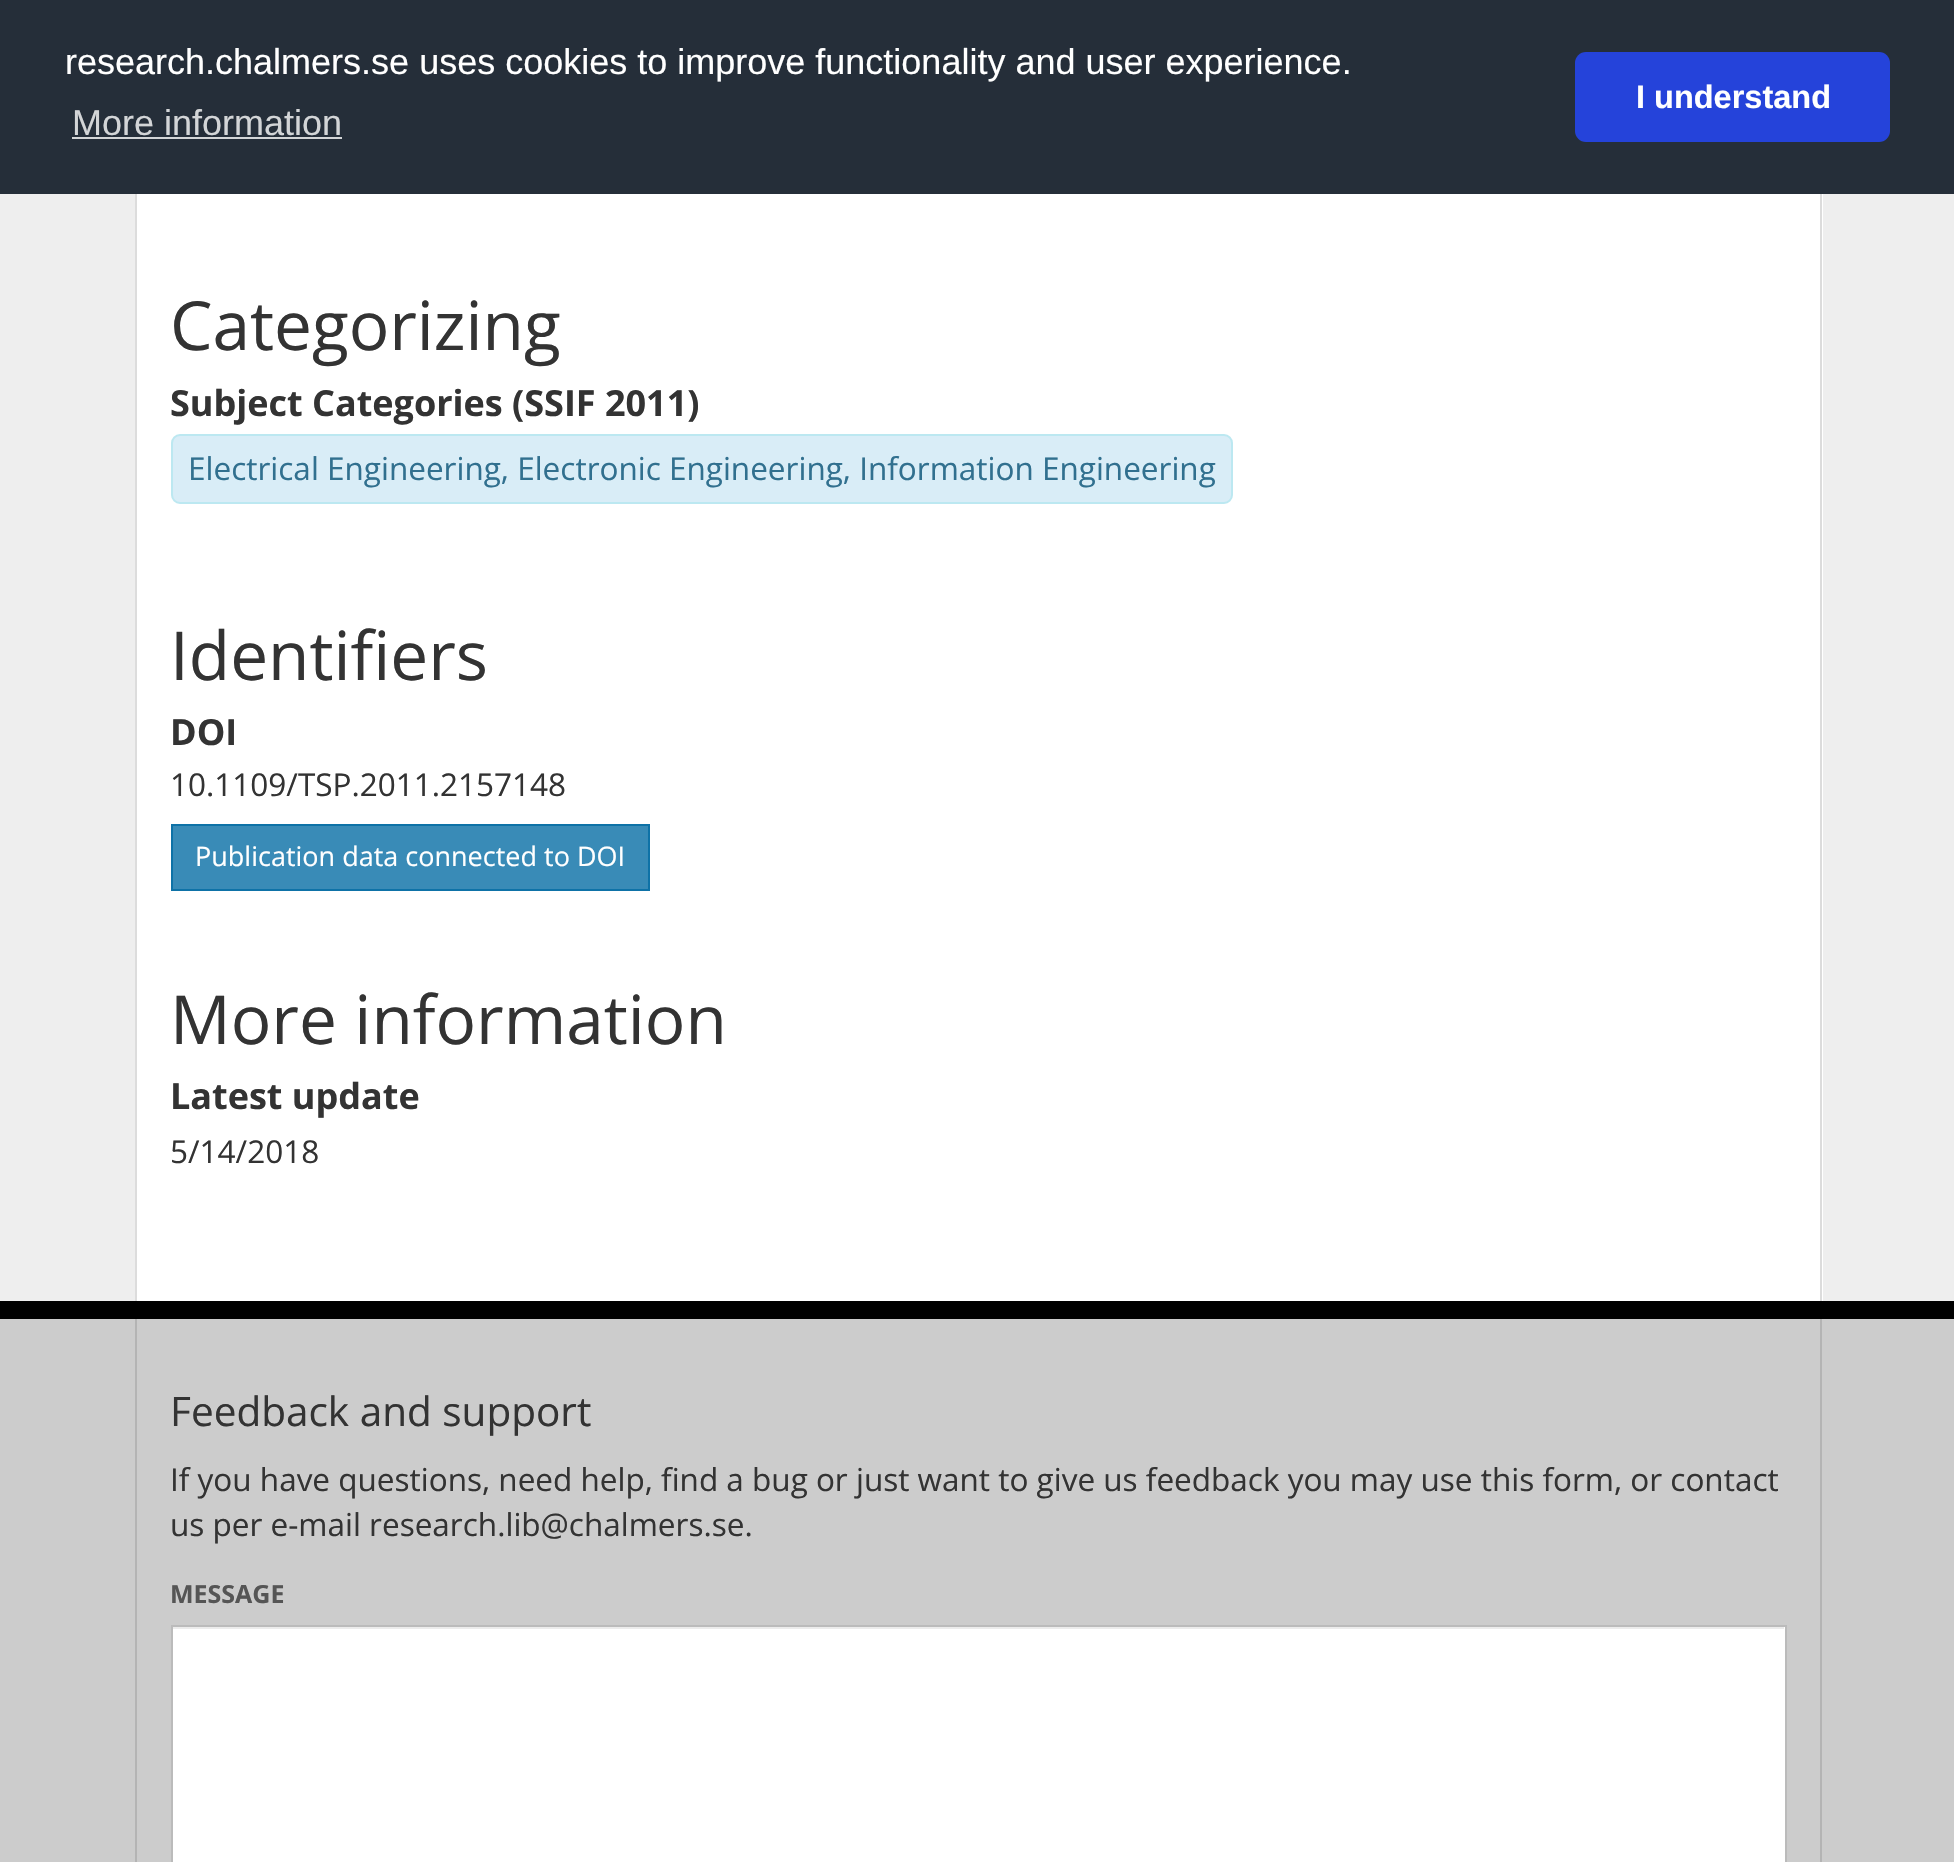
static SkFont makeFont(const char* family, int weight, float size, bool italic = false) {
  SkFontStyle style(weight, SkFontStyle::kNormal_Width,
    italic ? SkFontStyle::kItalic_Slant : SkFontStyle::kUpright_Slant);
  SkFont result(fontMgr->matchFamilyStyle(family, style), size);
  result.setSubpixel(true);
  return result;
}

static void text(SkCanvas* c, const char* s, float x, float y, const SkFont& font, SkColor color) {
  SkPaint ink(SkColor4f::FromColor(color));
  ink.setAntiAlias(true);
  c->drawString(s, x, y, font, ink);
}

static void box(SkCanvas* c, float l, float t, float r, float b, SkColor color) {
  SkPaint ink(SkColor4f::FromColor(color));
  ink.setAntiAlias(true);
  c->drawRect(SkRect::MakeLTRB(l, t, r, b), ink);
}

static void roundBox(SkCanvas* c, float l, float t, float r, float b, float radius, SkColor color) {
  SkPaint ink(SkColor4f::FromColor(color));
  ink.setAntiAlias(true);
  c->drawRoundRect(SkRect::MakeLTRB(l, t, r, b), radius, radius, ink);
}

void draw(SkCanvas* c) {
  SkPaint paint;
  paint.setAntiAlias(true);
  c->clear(0xffeeeeee);
  box(c, 0, 0, 1954, 194, 0xff252e39);
  SkFont face1 = makeFont("Liberation Sans", 400, 36);
  text(c, "research.chalmers.se uses cookies to improve functionality and user experience.", 65, 74, face1, 0xffffffff);
  text(c, "More information", 72, 135, face1, 0xffd3d5d7);
  box(c, 72, 137, 342, 139, 0xffd3d5d7);
  roundBox(c, 1575, 52, 1890, 142, 11, 0xff2543da);
  SkFont face2 = makeFont("Liberation Sans", 700, 32.5f);
  text(c, "I understand", 1636, 108, face2, 0xffffffff);
  box(c, 137, 194, 1823, 1301, 0xffffffff);
  box(c, 1820, 194, 1822, 1301, 0xffdcdcdc);
  box(c, 135, 194, 137, 1301, 0xffdcdcdc);
  SkFont face3 = makeFont("Open Sans", 400, 67.5f);
  text(c, "Categorizing", 170, 350, face3, 0xff333333);
  SkFont face4 = makeFont("Open Sans", 700, 36);
  text(c, "Subject Categories (SSIF 2011)", 170, 416, face4, 0xff333333);
  paint.setColor(0xffd9edf7);
  c->drawRoundRect(SkRect::MakeLTRB(172, 435, 1232, 503), 8, 8, paint);
  paint.setStyle(SkPaint::kStroke_Style);
  paint.setStrokeWidth(2);
  paint.setColor(0xffbce8f1);
  c->drawRoundRect(SkRect::MakeLTRB(172, 435, 1232, 503), 8, 8, paint);
  SkFont face5 = makeFont("Open Sans", 400, 31.5f);
  text(c, "Electrical Engineering, Electronic Engineering, Information Engineering", 188, 480, face5, 0xff31708f);
  text(c, "Identifiers", 170, 680, face3, 0xff333333);
  text(c, "DOI", 170, 745, face4, 0xff333333);
  text(c, "10.1109/TSP.2011.2157148", 170, 796, face5, 0xff333333);
  paint.setStyle(SkPaint::kFill_Style);
  paint.setColor(0xff398bb7);
  c->drawRect(SkRect::MakeLTRB(172, 825, 649, 890), paint);
  paint.setStyle(SkPaint::kStroke_Style);
  paint.setColor(0xff0e72a7);
  c->drawRect(SkRect::MakeLTRB(172, 825, 649, 890), paint);
  SkFont face6 = makeFont("Open Sans", 400, 27);
  text(c, "Publication data connected to DOI", 195, 866, face6, 0xffffffff);
  text(c, "More information", 170, 1044, face3, 0xff333333);
  text(c, "Latest update", 170, 1109, face4, 0xff333333);
  text(c, "5/14/2018", 170, 1163, face5, 0xff333333);
  box(c, 0, 1319, 1954, 1862, 0xffcccccc);
  box(c, 0, 1301, 1954, 1319, 0xff000000);
  box(c, 1820, 1319, 1822, 1862, 0xffb4b4b4);
  box(c, 135, 1319, 137, 1862, 0xffb4b4b4);
  SkFont face7 = makeFont("Open Sans", 400, 40.5f);
  text(c, "Feedback and support", 170, 1426, face7, 0xff333333);
  text(c, "If you have questions, need help, find a bug or just want to give us feedback you may use this form, or contact", 170, 1491, face5, 0xff333333);
  text(c, "us per e-mail research.lib@chalmers.se.", 170, 1536, face5, 0xff333333);
  SkFont face8 = makeFont("Open Sans", 700, 25);
  text(c, "MESSAGE", 170, 1603, face8, 0xff555555);
  box(c, 173, 1627, 1785, 1862, 0xffffffff);
  box(c, 173, 1627, 1784, 1629, 0xffececec);
  paint.setColor(0xffbbbbbb);
  c->drawRect(SkRect::MakeLTRB(172, 1626, 1786, 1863), paint);
}
